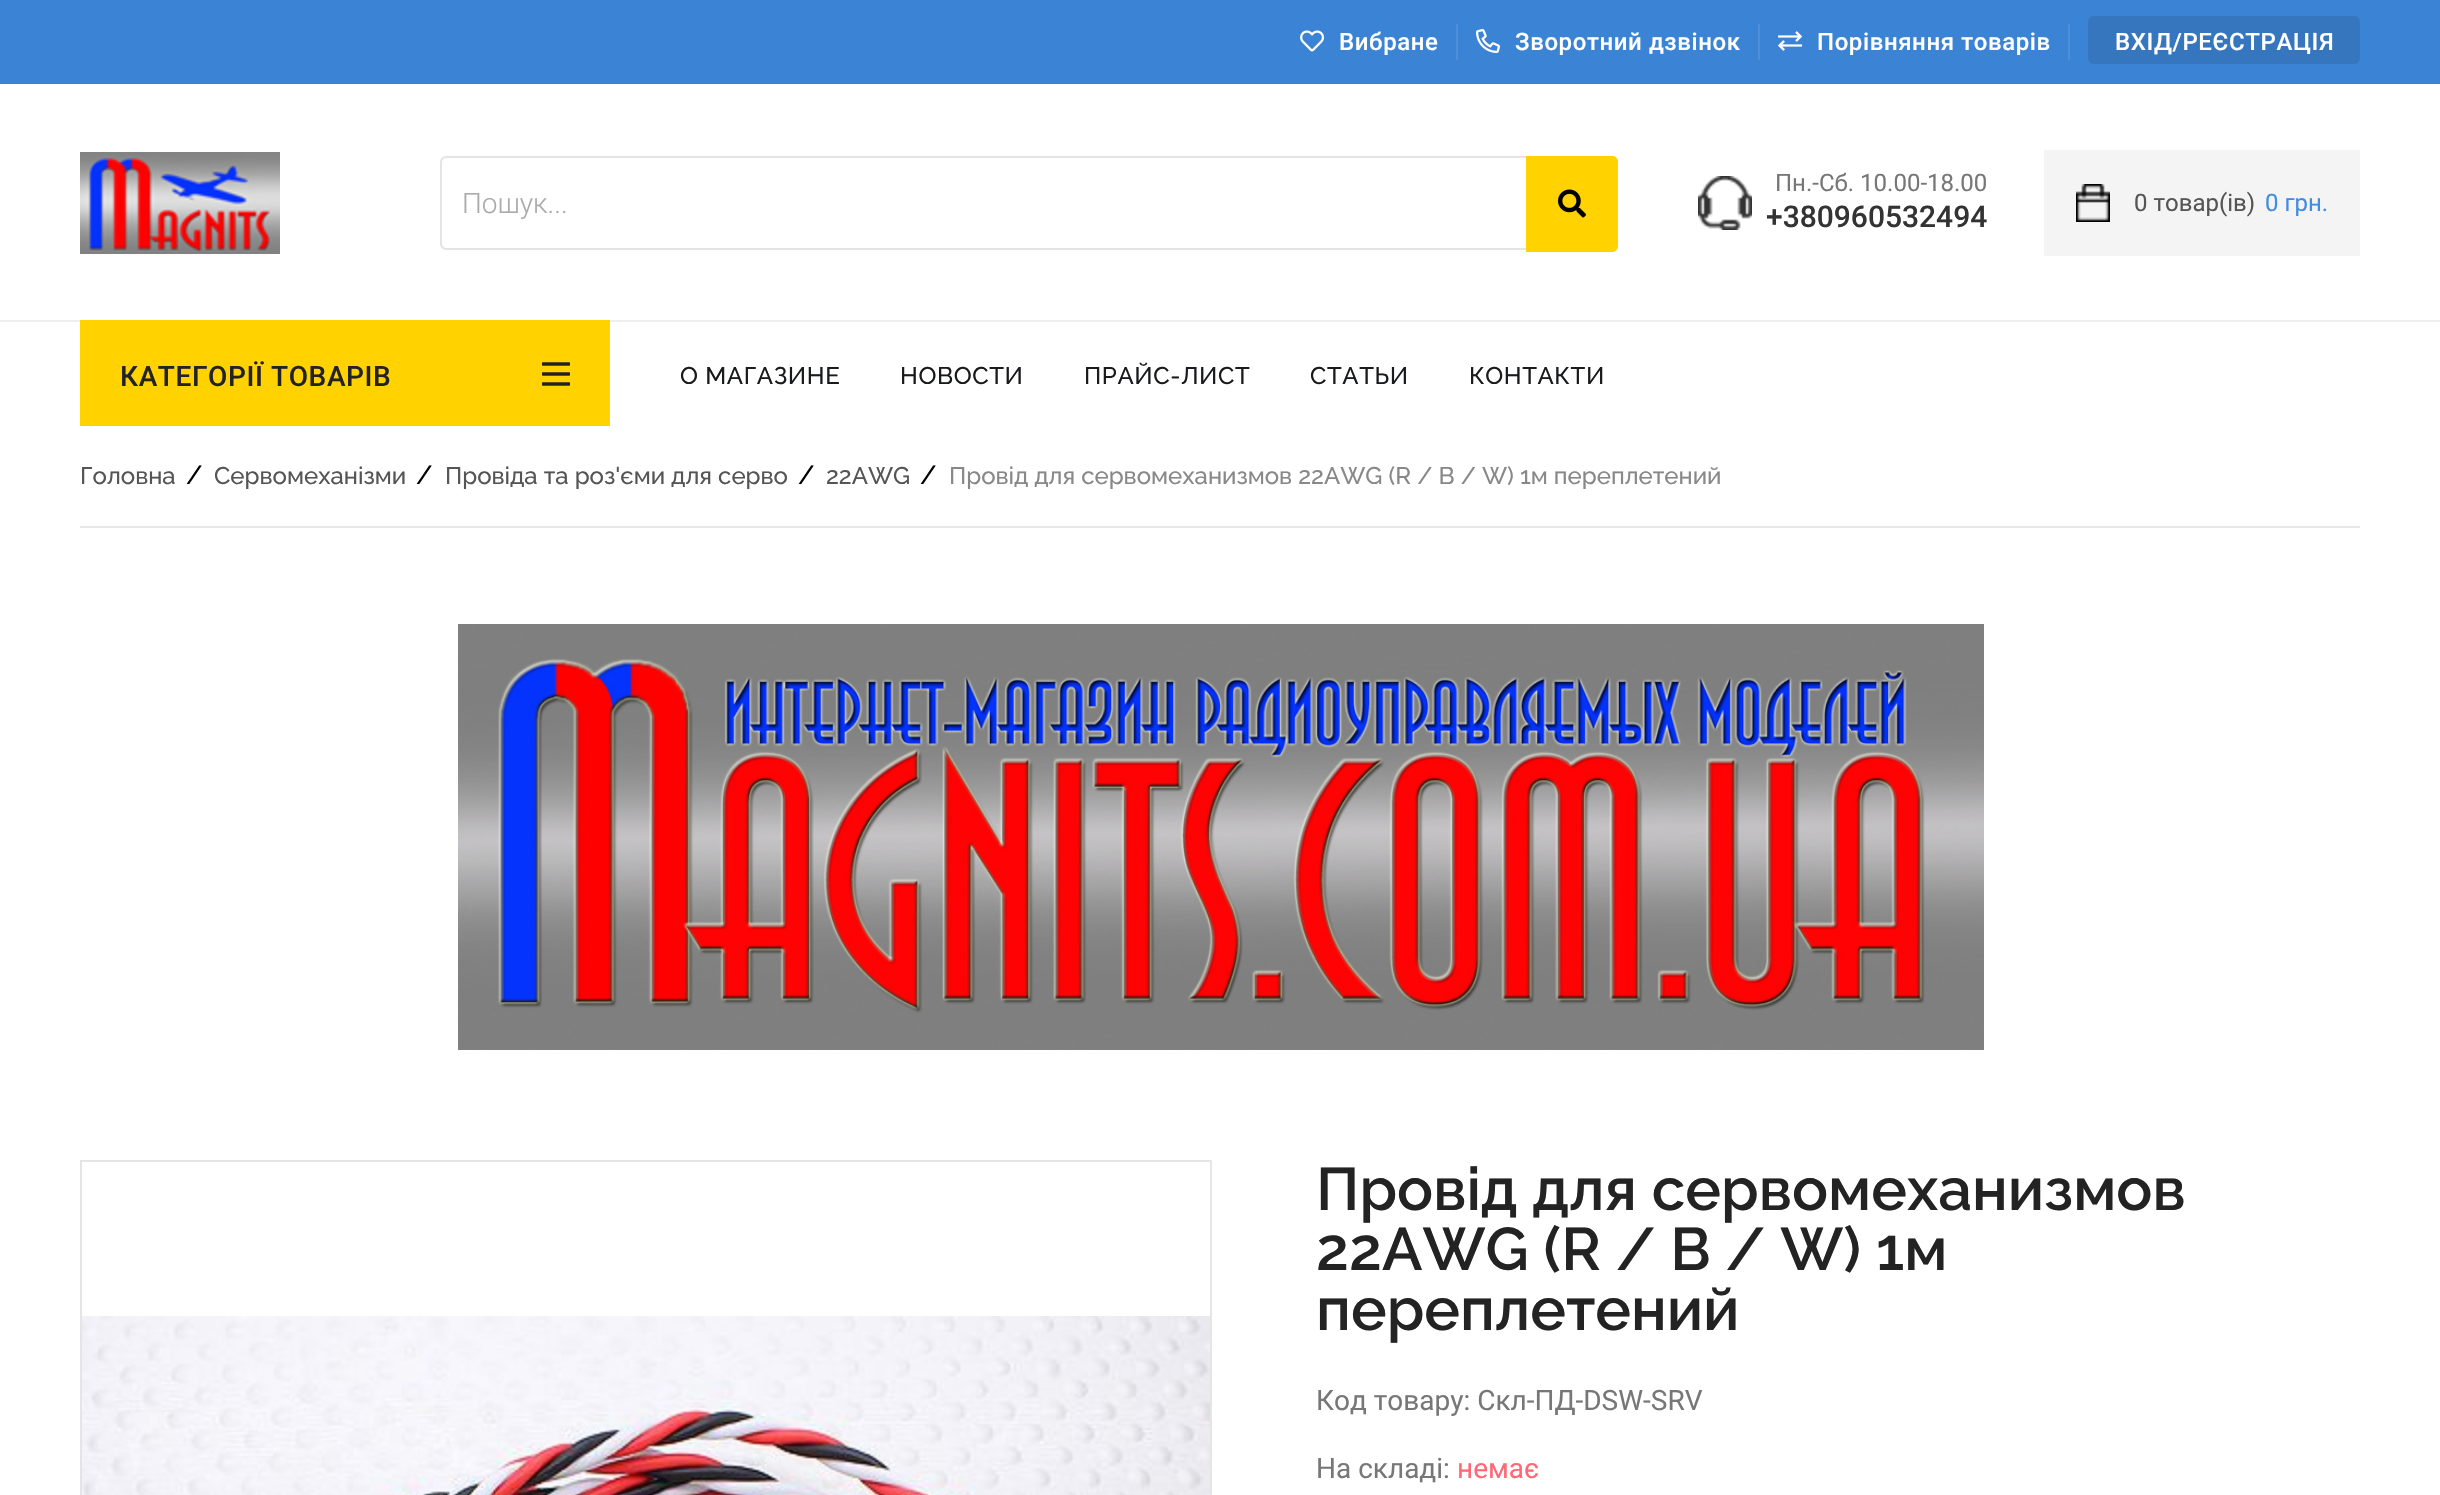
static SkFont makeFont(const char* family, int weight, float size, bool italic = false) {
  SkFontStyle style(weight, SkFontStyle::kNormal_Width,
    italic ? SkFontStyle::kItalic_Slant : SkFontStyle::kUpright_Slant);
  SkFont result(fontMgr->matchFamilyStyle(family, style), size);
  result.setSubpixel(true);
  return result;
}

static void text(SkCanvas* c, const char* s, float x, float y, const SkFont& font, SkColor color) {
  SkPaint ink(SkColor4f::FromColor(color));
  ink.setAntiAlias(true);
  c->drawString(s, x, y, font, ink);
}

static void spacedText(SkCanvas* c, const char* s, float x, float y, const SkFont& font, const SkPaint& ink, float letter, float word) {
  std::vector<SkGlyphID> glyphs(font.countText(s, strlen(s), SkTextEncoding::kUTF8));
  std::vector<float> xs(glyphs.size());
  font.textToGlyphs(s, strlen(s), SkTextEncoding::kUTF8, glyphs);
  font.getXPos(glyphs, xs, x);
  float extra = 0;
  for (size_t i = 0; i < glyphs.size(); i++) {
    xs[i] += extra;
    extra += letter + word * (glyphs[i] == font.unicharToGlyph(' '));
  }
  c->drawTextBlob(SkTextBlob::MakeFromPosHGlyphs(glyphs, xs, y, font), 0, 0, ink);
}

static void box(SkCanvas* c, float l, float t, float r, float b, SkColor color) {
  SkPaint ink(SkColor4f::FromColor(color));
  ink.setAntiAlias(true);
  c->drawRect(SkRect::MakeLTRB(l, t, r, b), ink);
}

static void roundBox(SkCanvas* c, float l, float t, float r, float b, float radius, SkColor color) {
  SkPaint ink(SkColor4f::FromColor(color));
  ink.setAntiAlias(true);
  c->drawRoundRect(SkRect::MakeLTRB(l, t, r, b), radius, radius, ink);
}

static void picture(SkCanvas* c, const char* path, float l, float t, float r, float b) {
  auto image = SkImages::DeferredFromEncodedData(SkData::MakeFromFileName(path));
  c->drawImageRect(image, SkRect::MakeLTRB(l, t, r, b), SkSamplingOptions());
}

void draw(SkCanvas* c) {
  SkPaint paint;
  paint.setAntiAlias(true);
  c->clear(0xffffffff);
  box(c, 0, 0, 2440, 84, 0xff3b83d4);
  picture(c, "img_01.png", 1300, 30, 1325, 52);
  SkFont face1 = makeFont("Roboto", 500, 24);
  paint.setColor(0xffffffff);
  spacedText(c, "Вибране", 1339, 50, face1, paint, 0.6f, 0);
  box(c, 1456, 24, 1458, 60, 0xff4f8fd8);
  picture(c, "img_02.png", 1476, 29, 1500, 53);
  spacedText(c, "Зворотний дзвінок", 1515, 50, face1, paint, 0.6f, 0);
  box(c, 1758, 24, 1760, 60, 0xff4f8fd8);
  picture(c, "img_03.png", 1778, 31, 1803, 51);
  spacedText(c, "Порівняння товарів", 1817, 50, face1, paint, 0.6f, 0);
  box(c, 2068, 24, 2070, 60, 0xff4f8fd8);
  roundBox(c, 2088, 16, 2360, 64, 6, 0xff3576be);
  spacedText(c, "ВХІД/РЕЄСТРАЦІЯ", 2115, 50, face1, paint, 0.6f, 0);
  picture(c, "img_04.png", 80, 152, 280, 254);
  paint.setColor(0xffe4e4e4);
  c->drawPath(SkPathBuilder(SkPathFillType::kEvenOdd).moveTo(446, 156).lineTo(1526, 156).lineTo(1526, 250).lineTo(446, 250).cubicTo(443, 250, 440, 247, 440, 244).lineTo(440, 162).cubicTo(440, 159, 443, 156, 446, 156).close().moveTo(446, 158).lineTo(1526, 158).lineTo(1526, 248).lineTo(446, 248).cubicTo(444, 248, 442, 246, 442, 244).lineTo(442, 162).cubicTo(442, 160, 444, 158, 446, 158).close().detach(), paint);
  SkFont face2 = makeFont("Roboto", 300, 28);
  text(c, "Пошук...", 462, 213, face2, 0xffaaaaaa);
  paint.setColor(0xffffd200);
  c->drawPath(SkPathBuilder().moveTo(1526, 156).lineTo(1612, 156).cubicTo(1615.5f, 156, 1618, 158.5f, 1618, 162).lineTo(1618, 246).cubicTo(1618, 249.5f, 1615.5f, 252, 1612, 252).lineTo(1526, 252).close().detach(), paint);
  picture(c, "img_05.png", 1558, 189, 1586, 218);
  picture(c, "img_06.png", 1698, 176, 1752, 230);
  SkFont face3 = makeFont("Roboto", 400, 24);
  text(c, "Пн.-Сб. 10.00-18.00", 1775, 191, face3, 0xff777777);
  SkFont face4 = makeFont("Roboto", 500, 30);
  text(c, "+380960532494", 1766, 227, face4, 0xff333333);
  box(c, 2044, 150, 2360, 256, 0xfff4f4f4);
  picture(c, "img_07.png", 2076, 184, 2110, 222);
  text(c, "0 товар(ів)", 2134, 211, face3, 0xff555555);
  text(c, "0 грн.", 2265, 211, face3, 0xff408de4);
  box(c, 0, 320, 2440, 322, 0xffeeeeee);
  box(c, 80, 320, 610, 426, 0xffffd200);
  SkFont face5 = makeFont("Roboto", 500, 28);
  paint.setColor(0xff232323);
  spacedText(c, "КАТЕГОРІЇ ТОВАРІВ", 120, 386, face5, paint, 0.6f, 0);
  picture(c, "img_08.png", 542, 362, 570, 386);
  SkFont face6 = makeFont("Raleway", 500, 24);
  paint.setColor(0xff191a1c);
  spacedText(c, "О МАГАЗИНЕ", 680, 384, face6, paint, 0.6f, 0);
  spacedText(c, "НОВОСТИ", 900, 384, face6, paint, 0.6f, 0);
  spacedText(c, "ПРАЙС-ЛИСТ", 1084, 384, face6, paint, 0.6f, 0);
  spacedText(c, "СТАТЬИ", 1310, 384, face6, paint, 0.6f, 0);
  spacedText(c, "КОНТАКТИ", 1469, 384, face6, paint, 0.6f, 0);
  box(c, 80, 526, 2360, 528, 0xffe8e8e8);
  text(c, "Головна", 80, 484, face6, 0xff555555);
  SkFont face7 = makeFont("Raleway", 500, 26);
  text(c, "/", 186, 484, face7, 0xff000000);
  text(c, "Сервомеханізми", 214, 484, face6, 0xff555555);
  text(c, "/", 416, 484, face7, 0xff000000);
  text(c, "Провіда та роз'єми для серво", 445, 484, face6, 0xff555555);
  text(c, "/", 798, 484, face7, 0xff000000);
  text(c, "22AWG", 826, 484, face6, 0xff555555);
  text(c, "/", 920, 484, face7, 0xff000000);
  text(c, "Провід для сервомеханизмов 22AWG (R / B / W) 1м переплетений", 949, 484, face6, 0xff888888);
  picture(c, "img_09.png", 458, 624, 1984, 1050);
  paint.setStyle(SkPaint::kStroke_Style);
  paint.setStrokeWidth(2);
  paint.setColor(0xffe5e5e5);
  c->drawRect(SkRect::MakeLTRB(81, 1161, 1211, 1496), paint);
  picture(c, "img_10.png", 82, 1316, 1210, 1495);
  SkFont face8 = makeFont("Raleway", 600, 60);
  text(c, "Провід для сервомеханизмов", 1316, 1210, face8, 0xff232323);
  text(c, "22AWG (R / B / W) 1м", 1316, 1270, face8, 0xff232323);
  text(c, "переплетений", 1316, 1330, face8, 0xff232323);
  SkFont face9 = makeFont("Roboto", 400, 28);
  text(c, "Код товару: Скл-ПД-DSW-SRV", 1316, 1410, face9, 0xff777777);
  text(c, "На складі:", 1316, 1478, face9, 0xff777777);
  text(c, "немає", 1457, 1478, face9, 0xffff6976);
}
